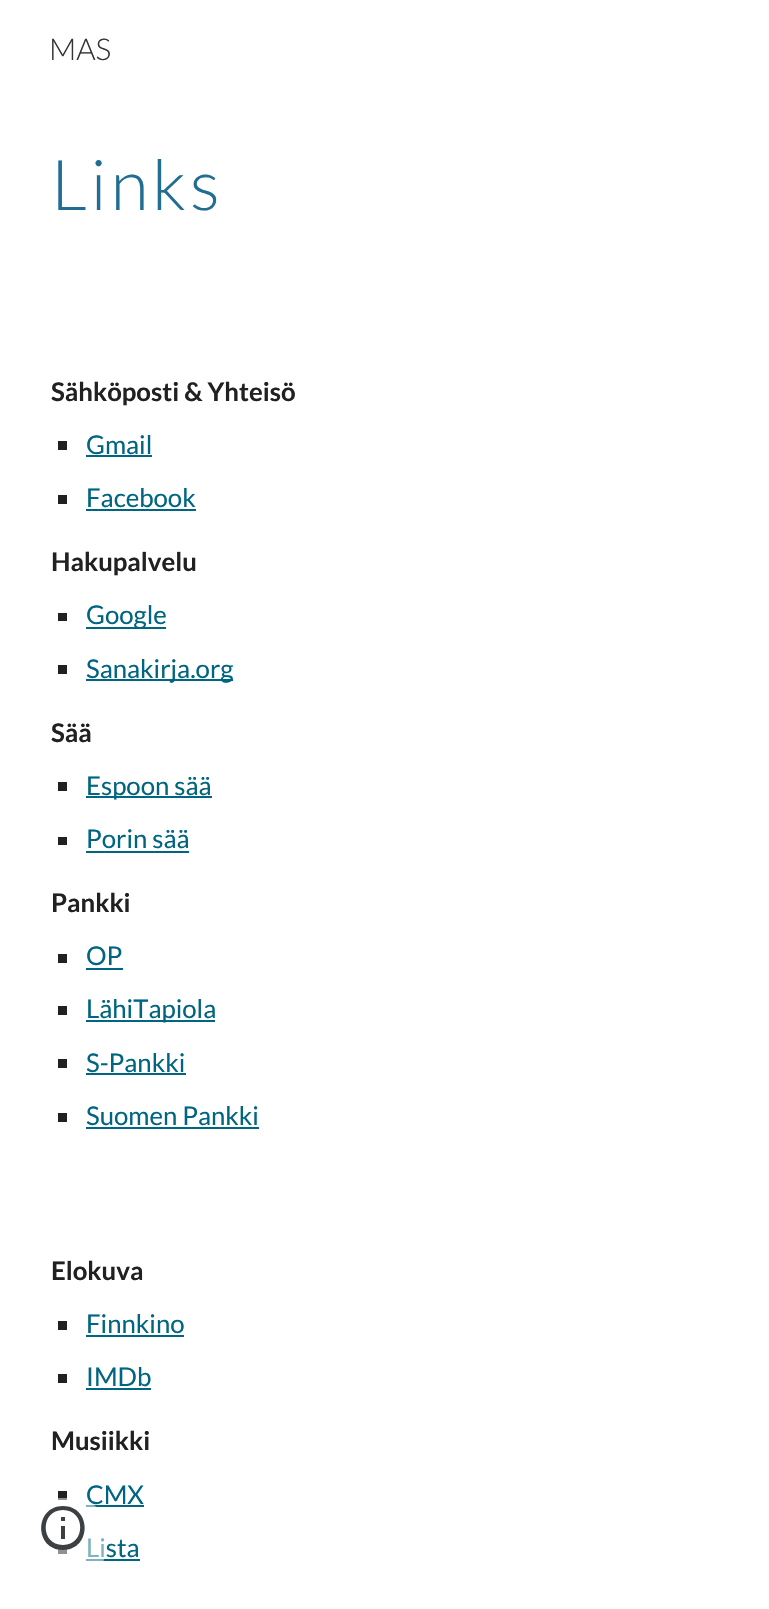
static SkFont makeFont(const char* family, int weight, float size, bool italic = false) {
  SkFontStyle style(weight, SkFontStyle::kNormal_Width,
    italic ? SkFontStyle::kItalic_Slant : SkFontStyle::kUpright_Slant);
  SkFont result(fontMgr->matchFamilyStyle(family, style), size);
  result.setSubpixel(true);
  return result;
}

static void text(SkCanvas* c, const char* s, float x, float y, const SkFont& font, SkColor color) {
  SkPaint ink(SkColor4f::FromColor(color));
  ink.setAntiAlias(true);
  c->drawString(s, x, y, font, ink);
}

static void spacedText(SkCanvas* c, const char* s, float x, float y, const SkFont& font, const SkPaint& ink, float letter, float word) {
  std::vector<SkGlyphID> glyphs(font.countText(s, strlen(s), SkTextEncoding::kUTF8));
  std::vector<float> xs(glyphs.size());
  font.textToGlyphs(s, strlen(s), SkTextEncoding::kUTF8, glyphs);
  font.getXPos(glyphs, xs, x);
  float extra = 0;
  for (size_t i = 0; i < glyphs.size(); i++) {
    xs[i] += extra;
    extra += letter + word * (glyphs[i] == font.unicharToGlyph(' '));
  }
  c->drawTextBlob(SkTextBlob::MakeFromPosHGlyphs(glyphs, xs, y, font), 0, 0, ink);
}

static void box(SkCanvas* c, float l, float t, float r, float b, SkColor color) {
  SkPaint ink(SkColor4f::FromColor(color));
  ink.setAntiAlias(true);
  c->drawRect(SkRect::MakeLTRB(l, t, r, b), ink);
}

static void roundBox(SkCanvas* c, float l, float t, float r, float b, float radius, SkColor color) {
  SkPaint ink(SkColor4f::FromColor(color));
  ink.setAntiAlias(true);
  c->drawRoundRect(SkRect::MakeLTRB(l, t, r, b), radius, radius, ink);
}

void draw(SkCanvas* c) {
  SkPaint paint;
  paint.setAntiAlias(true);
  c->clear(0xffffffff);
  SkFont face1 = makeFont("Lato", 300, 30);
  text(c, "MAS", 49, 60, face1, 0xff333333);
  SkFont face2 = makeFont("Lato", 300, 70);
  paint.setColor(0xff226e93);
  spacedText(c, "Links", 51, 210, face2, paint, 3.5f, 0);
  SkFont face3 = makeFont("Lato", 700, 25.75f);
  text(c, "Sähköposti & Yhteisö", 51, 401, face3, 0xff212121);
  box(c, 58, 441, 67, 450, 0xff212121);
  SkFont face4 = makeFont("Lato", 400, 25.75f);
  text(c, "Gmail", 86, 454, face4, 0xff006580);
  box(c, 86, 455, 152, 457, 0xff006580);
  box(c, 58, 495, 67, 504, 0xff212121);
  text(c, "Facebook", 86, 507, face4, 0xff006580);
  box(c, 86, 509, 196, 511, 0xff006580);
  text(c, "Hakupalvelu", 51, 571, face3, 0xff212121);
  box(c, 58, 613, 67, 621, 0xff212121);
  box(c, 86, 627, 166, 629, 0xff006580);
  text(c, "Google", 86, 624, face4, 0xff006580);
  box(c, 58, 665, 67, 674, 0xff212121);
  box(c, 86, 679, 233, 681, 0xff006580);
  text(c, "Sanakirja.org", 86, 678, face4, 0xff006580);
  text(c, "Sää", 51, 742, face3, 0xff212121);
  box(c, 58, 782, 67, 791, 0xff212121);
  box(c, 86, 796, 212, 798, 0xff006580);
  text(c, "Espoon sää", 86, 795, face4, 0xff006580);
  box(c, 58, 837, 67, 845, 0xff212121);
  text(c, "Porin sää", 86, 848, face4, 0xff006580);
  box(c, 86, 851, 189, 853, 0xff006580);
  text(c, "Pankki", 51, 912, face3, 0xff212121);
  box(c, 58, 954, 67, 963, 0xff212121);
  text(c, "OP", 86, 965, face4, 0xff006580);
  box(c, 86, 968, 123, 970, 0xff006580);
  box(c, 58, 1006, 67, 1015, 0xff212121);
  box(c, 86, 1020, 215, 1022, 0xff006580);
  text(c, "LähiTapiola", 86, 1018, face4, 0xff006580);
  box(c, 58, 1059, 67, 1068, 0xff212121);
  text(c, "S-Pankki", 86, 1072, face4, 0xff006580);
  box(c, 86, 1073, 186, 1075, 0xff006580);
  box(c, 58, 1113, 67, 1122, 0xff212121);
  text(c, "Suomen Pankki", 86, 1125, face4, 0xff006580);
  box(c, 86, 1127, 259, 1129, 0xff006580);
  text(c, "Elokuva", 51, 1280, face3, 0xff212121);
  box(c, 58, 1321, 67, 1330, 0xff212121);
  text(c, "Finnkino", 86, 1333, face4, 0xff006580);
  box(c, 86, 1335, 184, 1337, 0xff006580);
  box(c, 58, 1374, 67, 1383, 0xff212121);
  text(c, "IMDb", 86, 1386, face4, 0xff006580);
  box(c, 86, 1388, 151, 1390, 0xff006580);
  text(c, "Musiikki", 51, 1450, face3, 0xff212121);
  box(c, 58, 1491, 67, 1500, 0xff212121);
  text(c, "CMX", 86, 1504, face4, 0xff006580);
  box(c, 86, 1505, 144, 1507, 0xff006580);
  box(c, 58, 1549, 67, 1554, 0xff212121);
  text(c, "Lista", 86, 1557, face4, 0xff006580);
  box(c, 86, 1559, 140, 1561, 0xff006580);
  roundBox(c, 21, 1498, 105, 1582, 30, 0x80ffffff);
  paint.setColor(0xff3c4043);
  c->drawPath(SkPathBuilder().moveTo(61, 1539).lineTo(65, 1539).lineTo(65, 1526).lineTo(61, 1526).close().moveTo(63, 1506).cubicTo(34, 1506, 34, 1550, 63, 1550).cubicTo(92, 1550, 92, 1506, 63, 1506).close().moveTo(63, 1545).cubicTo(40, 1545, 40, 1510, 63, 1510).cubicTo(86, 1510, 86, 1545, 63, 1545).close().moveTo(61, 1521).lineTo(65, 1521).lineTo(65, 1517).lineTo(61, 1517).close().detach(), paint);
}
